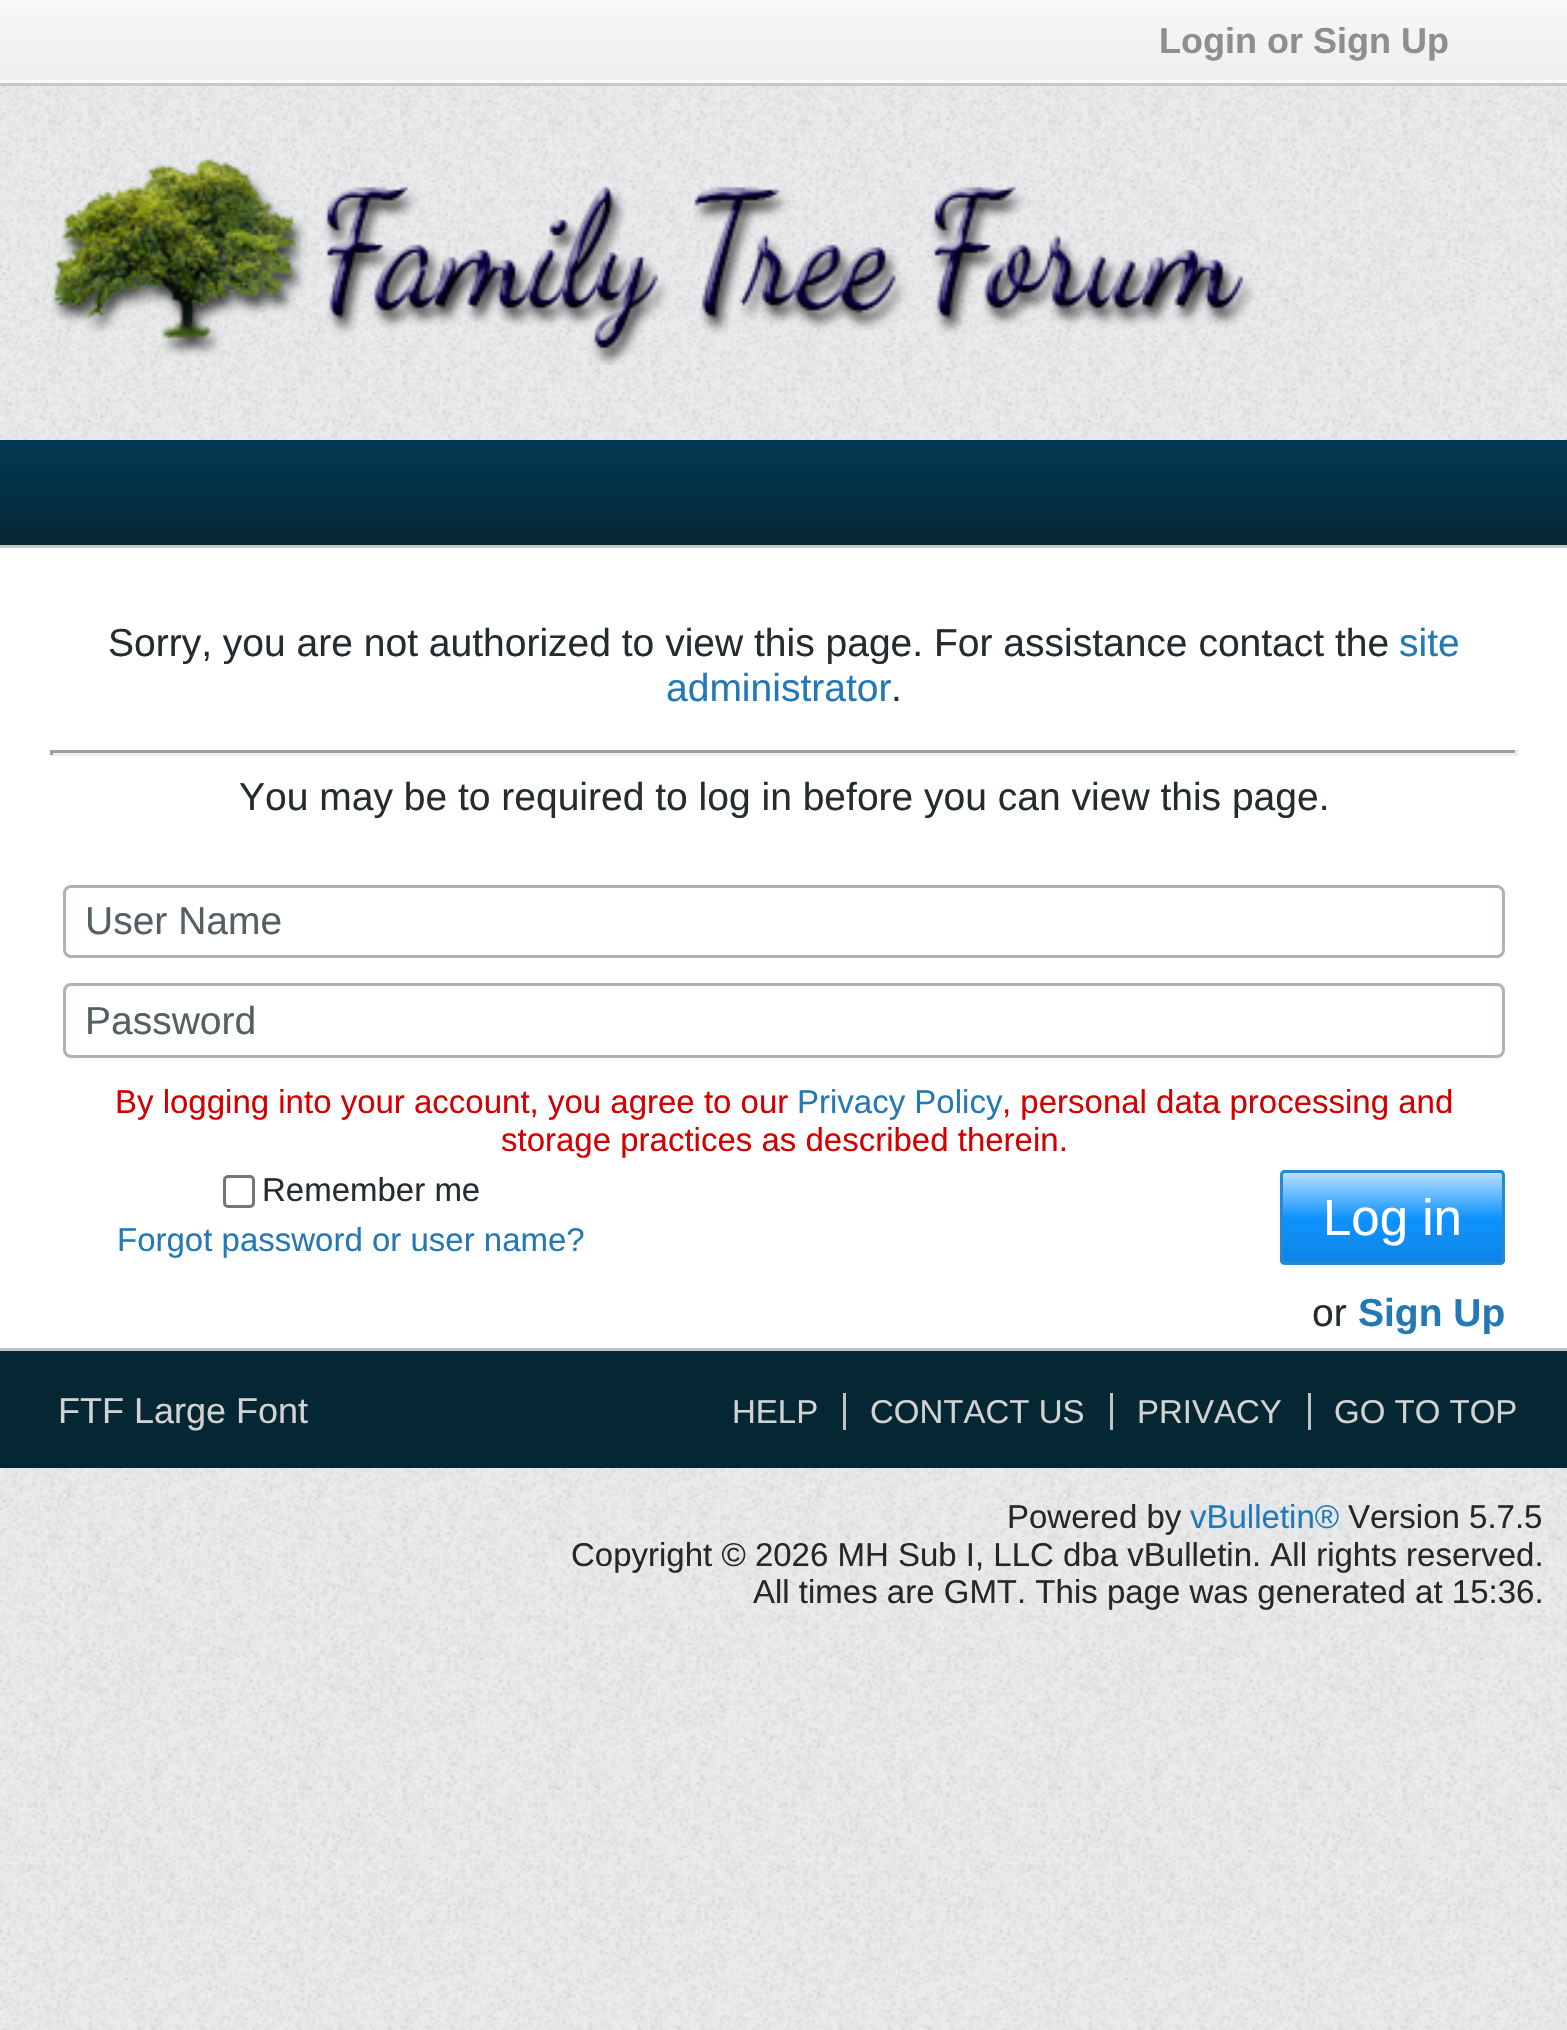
static SkFont makeFont(const char* family, int weight, float size, bool italic = false) {
  SkFontStyle style(weight, SkFontStyle::kNormal_Width,
    italic ? SkFontStyle::kItalic_Slant : SkFontStyle::kUpright_Slant);
  SkFont result(fontMgr->matchFamilyStyle(family, style), size);
  result.setSubpixel(true);
  return result;
}

static void text(SkCanvas* c, const char* s, float x, float y, const SkFont& font, SkColor color) {
  SkPaint ink(SkColor4f::FromColor(color));
  ink.setAntiAlias(true);
  c->drawString(s, x, y, font, ink);
}

static void box(SkCanvas* c, float l, float t, float r, float b, SkColor color) {
  SkPaint ink(SkColor4f::FromColor(color));
  ink.setAntiAlias(true);
  c->drawRect(SkRect::MakeLTRB(l, t, r, b), ink);
}

static void roundBox(SkCanvas* c, float l, float t, float r, float b, float radius, SkColor color) {
  SkPaint ink(SkColor4f::FromColor(color));
  ink.setAntiAlias(true);
  c->drawRoundRect(SkRect::MakeLTRB(l, t, r, b), radius, radius, ink);
}

static void picture(SkCanvas* c, const char* path, float l, float t, float r, float b) {
  auto image = SkImages::DeferredFromEncodedData(SkData::MakeFromFileName(path));
  c->drawImageRect(image, SkRect::MakeLTRB(l, t, r, b), SkSamplingOptions());
}

void draw(SkCanvas* c) {
  SkPaint paint;
  paint.setAntiAlias(true);
  c->clear(0xffeaebec);
  picture(c, "img_01.png", 0, 1468, 1567, 2030);
  {
    const SkColor colors[] = {0xfff8f8f8, 0xffefedee};
    const float stops[] = {0, 1};
    const SkPoint ends[] = {{784, 0}, {784, 85}};
    paint.setShader(SkGradientShader::MakeLinear(ends, colors, stops, 2, SkTileMode::kClamp));
    paint.setAlpha(255);
  }
  c->drawRect(SkRect::MakeLTRB(0, 0, 1567, 80), paint);
  SkFont face1 = makeFont("Liberation Sans", 700, 36);
  text(c, "Login or Sign Up", 1159, 53, face1, 0xff8e8e8e);
  box(c, 0, 80, 1567, 83, 0xfffafafa);
  box(c, 0, 83, 1567, 86, 0xffc7c8c9);
  picture(c, "img_02.png", 0, 86, 1567, 440);
  picture(c, "img_03.png", 51, 159, 1255, 365);
  {
    const SkColor colors[] = {0xff013a54, 0xff052733};
    const float stops[] = {0, 1};
    const SkPoint ends[] = {{784, 440}, {784, 545}};
    paint.setShader(SkGradientShader::MakeLinear(ends, colors, stops, 2, SkTileMode::kClamp));
    paint.setAlpha(255);
  }
  c->drawRect(SkRect::MakeLTRB(0, 440, 1567, 545), paint);
  box(c, 0, 545, 1567, 548, 0xffc4c7c8);
  box(c, 0, 548, 1567, 1348, 0xffffffff);
  SkFont face2 = makeFont("Liberation Sans", 400, 39);
  text(c, "Sorry, you are not authorized to view this page. For assistance contact the", 108, 656, face2, 0xff252c2f);
  text(c, "site", 1399, 656, face2, 0xff2379b5);
  text(c, "administrator", 666, 701, face2, 0xff2379b5);
  text(c, ".", 891, 701, face2, 0xff252c2f);
  box(c, 50, 750, 1518, 753, 0xff9f9f9f);
  box(c, 1515, 750, 1518, 755, 0xffeeeeee);
  box(c, 50, 753, 1518, 756, 0xffeeeeee);
  box(c, 50, 750, 53, 755, 0xff9f9f9f);
  text(c, "You may be to required to log in before you can view this page.", 239, 810, face2, 0xff252c2f);
  paint.setStyle(SkPaint::kStroke_Style);
  paint.setStrokeWidth(3);
  paint.setShader(nullptr);
  paint.setColor(0xffaeb3b6);
  c->drawRoundRect(SkRect::MakeLTRB(64.5f, 886.5f, 1503.5f, 956.5f), 6.5f, 6.5f, paint);
  text(c, "User Name", 85, 934, face2, 0xff556065);
  c->drawRoundRect(SkRect::MakeLTRB(64.5f, 984.5f, 1503.5f, 1056.5f), 6.5f, 6.5f, paint);
  text(c, "Password", 85, 1034, face2, 0xff556065);
  SkFont face3 = makeFont("Liberation Sans", 400, 33);
  text(c, "By logging into your account, you agree to our", 115, 1113, face3, 0xffd30000);
  text(c, "Privacy Policy", 797, 1113, face3, 0xff2379b5);
  text(c, ", personal data processing and", 1002, 1113, face3, 0xffd30000);
  text(c, "storage practices as described therein.", 501, 1151, face3, 0xffd30000);
  paint.setColor(0xff767676);
  c->drawRoundRect(SkRect::MakeLTRB(224.5f, 1176.5f, 253.5f, 1206.5f), 3.5f, 3.5f, paint);
  text(c, "Remember me", 262, 1201, face3, 0xff252c2f);
  text(c, "Forgot password or user name?", 117, 1251, face3, 0xff2379b5);
  roundBox(c, 1280, 1170, 1505, 1265, 5, 0xff0f93ff);
  c->save();
  c->clipPath(SkPathBuilder().moveTo(1285, 1170).lineTo(1500, 1170).cubicTo(1503, 1170, 1505, 1172, 1505, 1175).lineTo(1505, 1260).cubicTo(1505, 1263, 1503, 1265, 1500, 1265).lineTo(1285, 1265).cubicTo(1282, 1265, 1280, 1263, 1280, 1260).lineTo(1280, 1175).cubicTo(1280, 1172, 1282, 1170, 1285, 1170).close().detach(), true);
  paint.setStyle(SkPaint::kFill_Style);
  {
    const SkColor colors[] = {0x1a000000, 0x00000000, 0x00ffffff, 0xb3ffffff};
    const float stops[] = {0, 0.5f, 0.5f, 1};
    const SkPoint ends[] = {{1393, 1263}, {1393, 1173}};
    paint.setShader(SkGradientShader::MakeLinear(ends, colors, stops, 4, SkTileMode::kClamp));
    paint.setAlpha(255);
  }
  c->drawRect(SkRect::MakeLTRB(1280, 1173, 1505, 1263), paint);
  c->restore();
  paint.setStyle(SkPaint::kStroke_Style);
  paint.setShader(nullptr);
  paint.setColor(0xff2989cc);
  c->drawRoundRect(SkRect::MakeLTRB(1281.5f, 1171.5f, 1503.5f, 1263.5f), 3.5f, 3.5f, paint);
  SkFont face4 = makeFont("Liberation Sans", 400, 51);
  text(c, "Log in", 1323, 1235, face4, 0xffffffff);
  text(c, "or", 1312, 1326, face2, 0xff252c2f);
  SkFont face5 = makeFont("Liberation Sans", 700, 39);
  text(c, "Sign Up", 1358, 1326, face5, 0xff2379b5);
  box(c, 0, 1351, 1567, 1468, 0xff052733);
  box(c, 0, 1348, 1567, 1351, 0xffc2c2c2);
  SkFont face6 = makeFont("Liberation Sans", 400, 36);
  text(c, "FTF Large Font", 58, 1423, face6, 0xffd2d2d2);
  text(c, "HELP", 732, 1423, face3, 0xffd2d2d2);
  text(c, "CONTACT US", 870, 1423, face3, 0xffd2d2d2);
  box(c, 843, 1393, 846, 1430, 0xffc2c2c2);
  text(c, "PRIVACY", 1137, 1423, face3, 0xffd2d2d2);
  box(c, 1110, 1393, 1113, 1430, 0xffc2c2c2);
  text(c, "GO TO TOP", 1334, 1423, face3, 0xffd2d2d2);
  box(c, 1308, 1393, 1311, 1430, 0xffc2c2c2);
  text(c, "Powered by", 1007, 1528, face3, 0xff272727);
  text(c, "vBulletin®", 1190, 1528, face3, 0xff2379b5);
  text(c, "Version 5.7.5", 1348, 1528, face3, 0xff272727);
  text(c, "Copyright © 2026 MH Sub I, LLC dba vBulletin. All rights reserved.", 571, 1566, face3, 0xff272727);
  text(c, "All times are GMT. This page was generated at 15:36.", 753, 1603, face3, 0xff272727);
}
